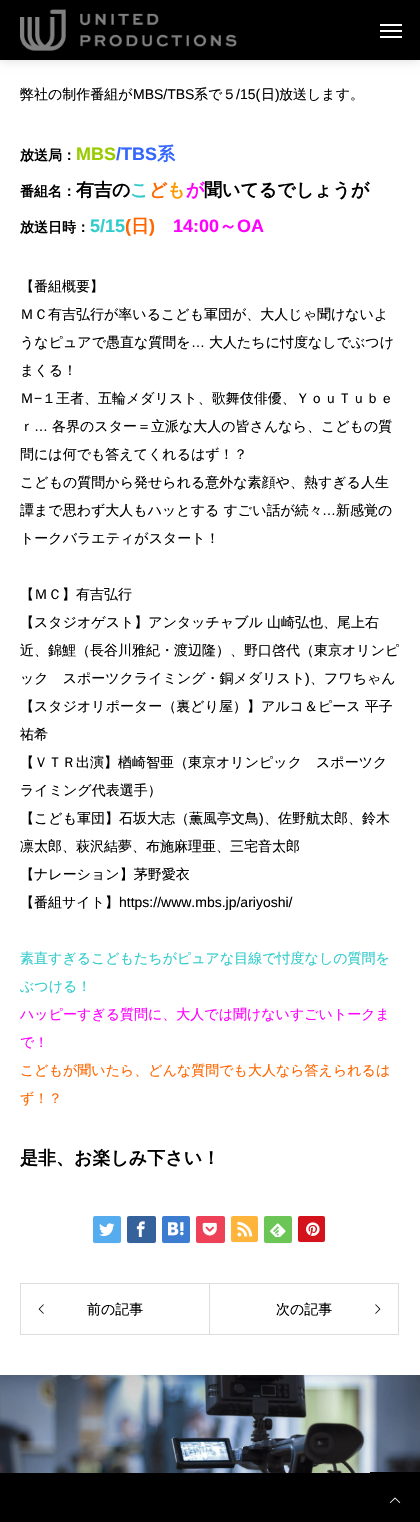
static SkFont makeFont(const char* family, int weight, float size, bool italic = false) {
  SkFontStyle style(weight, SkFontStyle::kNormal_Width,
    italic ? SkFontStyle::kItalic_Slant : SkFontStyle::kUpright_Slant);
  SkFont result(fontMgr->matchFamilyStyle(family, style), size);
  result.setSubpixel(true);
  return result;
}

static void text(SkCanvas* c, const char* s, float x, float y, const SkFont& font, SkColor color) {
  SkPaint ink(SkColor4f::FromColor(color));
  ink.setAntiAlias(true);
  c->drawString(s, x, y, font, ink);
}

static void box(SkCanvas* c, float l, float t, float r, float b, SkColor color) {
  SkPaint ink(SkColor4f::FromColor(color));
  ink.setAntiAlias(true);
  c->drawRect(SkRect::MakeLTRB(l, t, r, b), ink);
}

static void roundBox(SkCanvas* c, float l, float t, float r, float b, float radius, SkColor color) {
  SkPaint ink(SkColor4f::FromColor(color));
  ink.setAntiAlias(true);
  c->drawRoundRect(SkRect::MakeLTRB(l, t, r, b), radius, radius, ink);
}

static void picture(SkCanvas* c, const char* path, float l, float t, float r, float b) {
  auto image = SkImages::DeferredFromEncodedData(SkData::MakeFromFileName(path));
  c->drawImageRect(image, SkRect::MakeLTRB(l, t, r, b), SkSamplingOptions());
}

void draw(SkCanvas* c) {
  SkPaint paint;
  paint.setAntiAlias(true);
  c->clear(0xffffffff);
  paint.setColor(0x26000000);
  paint.setMaskFilter(SkMaskFilter::MakeBlur(kNormal_SkBlurStyle, 5));
  c->drawRect(SkRect::MakeLTRB(0, 0, 420, 60), paint);
  paint.setMaskFilter(nullptr);
  box(c, 0, 0, 420, 60, 0xff000000);
  picture(c, "img_01.png", 20, 9, 237, 51);
  box(c, 380, 24, 402, 26, 0xffffffff);
  box(c, 380, 30, 402, 32, 0xffffffff);
  box(c, 380, 36, 402, 38, 0xffffffff);
  SkFont face1 = makeFont("WenQuanYi Zen Hei", 500, 14);
  text(c, "弊社の制作番組が", 20, 99, face1, 0xff000000);
  SkFont face2 = makeFont("Liberation Sans", 400, 14);
  text(c, "MBS/TBS", 133, 99, face2, 0xff000000);
  text(c, "系で５", 194, 99, face1, 0xff000000);
  text(c, "/15(", 236, 99, face2, 0xff000000);
  text(c, "日", 261, 99, face1, 0xff000000);
  text(c, ")", 275, 99, face2, 0xff000000);
  text(c, "放送します。", 279, 99, face1, 0xff000000);
  SkFont face3 = makeFont("WenQuanYi Zen Hei", 700, 14);
  text(c, "放送局：", 20, 160, face3, 0xff000000);
  SkFont face4 = makeFont("Liberation Sans", 700, 18);
  text(c, "MBS", 76, 160, face4, 0xff99cc00);
  text(c, "/TBS", 116, 160, face4, 0xff3366ff);
  SkFont face5 = makeFont("WenQuanYi Zen Hei", 700, 18);
  text(c, "系", 157, 160, face5, 0xff3366ff);
  text(c, "番組名：", 20, 196, face3, 0xff000000);
  text(c, "有吉の", 76, 196, face5, 0xff000000);
  text(c, "こ", 130, 196, face5, 0xff33cccc);
  text(c, "ど", 149, 196, face5, 0xffff6600);
  text(c, "も", 167, 196, face5, 0xffff9900);
  text(c, "が", 186, 196, face5, 0xffff00ff);
  text(c, "聞いてるでしょうが", 204, 196, face5, 0xff000000);
  text(c, "放送日時：", 20, 232, face3, 0xff000000);
  text(c, "5/15", 90, 232, face4, 0xff33cccc);
  text(c, "(", 125, 232, face4, 0xffff6600);
  text(c, "日", 131, 232, face5, 0xffff6600);
  text(c, ")", 149, 232, face4, 0xffff6600);
  text(c, "14:00", 173, 232, face4, 0xffff00ff);
  text(c, "～", 219, 232, face5, 0xffff00ff);
  text(c, "OA", 237, 232, face4, 0xffff00ff);
  text(c, "【番組概要】", 20, 291, face1, 0xff000000);
  text(c, "ＭＣ有吉弘行が率いるこども軍団が、大人じゃ聞けないよ", 20, 319, face1, 0xff000000);
  text(c, "うなピュアで愚直な質問を", 20, 347, face1, 0xff000000);
  text(c, "…", 191, 347, face2, 0xff000000);
  text(c, "大人たちに忖度なしでぶつけ", 209, 347, face1, 0xff000000);
  text(c, "まくる！", 20, 375, face1, 0xff000000);
  text(c, "Ｍ", 20, 403, face1, 0xff000000);
  text(c, "−", 34, 403, face2, 0xff000000);
  text(c, "１王者、五輪メダリスト、歌舞伎俳優、ＹｏｕＴｕｂｅ", 42, 403, face1, 0xff000000);
  text(c, "ｒ", 20, 431, face1, 0xff000000);
  text(c, "…", 34, 431, face2, 0xff000000);
  text(c, "各界のスター＝立派な大人の皆さんなら、こどもの質", 52, 431, face1, 0xff000000);
  text(c, "問には何でも答えてくれるはず！？", 20, 459, face1, 0xff000000);
  text(c, "こどもの質問から発せられる意外な素顔や、熱すぎる人生", 20, 487, face1, 0xff000000);
  text(c, "譚まで思わず大人もハッとする すごい話が続々", 20, 515, face1, 0xff000000);
  text(c, "…", 322, 515, face2, 0xff000000);
  text(c, "新感覚の", 336, 515, face1, 0xff000000);
  text(c, "トークバラエティがスタート！", 20, 543, face1, 0xff000000);
  text(c, "【ＭＣ】有吉弘行", 20, 599, face1, 0xff000000);
  text(c, "【スタジオゲスト】アンタッチャブル 山崎弘也、尾上右", 20, 627, face1, 0xff000000);
  text(c, "近、錦鯉（長谷川雅紀・渡辺隆）、野口啓代（東京オリンピ", 20, 655, face1, 0xff000000);
  text(c, "ック　スポーツクライミング・銅メダリスト", 20, 683, face1, 0xff000000);
  text(c, ")", 305, 683, face2, 0xff000000);
  text(c, "、フワちゃん", 310, 683, face1, 0xff000000);
  text(c, "【スタジオリポーター（裏どり屋）】アルコ＆ピース 平子", 20, 711, face1, 0xff000000);
  text(c, "祐希", 20, 739, face1, 0xff000000);
  text(c, "【ＶＴＲ出演】楢崎智亜（東京オリンピック　スポーツク", 20, 767, face1, 0xff000000);
  text(c, "ライミング代表選手）", 20, 795, face1, 0xff000000);
  text(c, "【こども軍団】石坂大志（薫風亭文鳥", 20, 823, face1, 0xff000000);
  text(c, ")", 259, 823, face2, 0xff000000);
  text(c, "、佐野航太郎、鈴木", 264, 823, face1, 0xff000000);
  text(c, "凛太郎、萩沢結夢、布施麻理亜、三宅音太郎", 20, 851, face1, 0xff000000);
  text(c, "【ナレーション】茅野愛衣", 20, 879, face1, 0xff000000);
  text(c, "【番組サイト】", 20, 907, face1, 0xff000000);
  text(c, "https://www.mbs.jp/ariyoshi/", 119, 907, face2, 0xff000000);
  text(c, "素直すぎるこどもたちがピュアな目線で忖度なしの質問を", 20, 963, face1, 0xff33cccc);
  text(c, "ぶつける！", 20, 991, face1, 0xff33cccc);
  text(c, "ハッピーすぎる質問に、大人では聞けないすごいトークま", 20, 1019, face1, 0xffff00ff);
  text(c, "で！", 20, 1047, face1, 0xffff00ff);
  text(c, "こどもが聞いたら、どんな質問でも大人なら答えられるは", 20, 1075, face1, 0xffff6600);
  text(c, "ず！？", 20, 1103, face1, 0xffff6600);
  text(c, "是非、お楽しみ下さい！", 20, 1164, face5, 0xff000000);
  paint.setColor(0xfff7f7f7);
  c->drawPath(SkPathBuilder().moveTo(93, 1241).cubicTo(93, 1245, 95.5f, 1244, 99, 1244).lineTo(115, 1244).cubicTo(118.5f, 1244, 121, 1245, 121, 1241).cubicTo(121, 1242, 120, 1243, 119, 1243).lineTo(95, 1243).cubicTo(94, 1243, 93, 1242, 93, 1241).close().detach(), paint);
  roundBox(c, 93, 1216, 121, 1243, 2, 0xff55acee);
  picture(c, "img_02.png", 99, 1223, 115, 1236);
  c->drawPath(SkPathBuilder().moveTo(127, 1241).cubicTo(127, 1245, 129.5f, 1244, 133, 1244).lineTo(150, 1244).cubicTo(153.5f, 1244, 156, 1245, 156, 1241).cubicTo(156, 1242, 155, 1243, 154, 1243).lineTo(129, 1243).cubicTo(128, 1243, 127, 1242, 127, 1241).close().detach(), paint);
  roundBox(c, 127, 1216, 156, 1243, 2, 0xff35629a);
  picture(c, "img_03.png", 136, 1221, 145, 1237);
  c->drawPath(SkPathBuilder().moveTo(162, 1241).cubicTo(162, 1245, 164.5f, 1244, 168, 1244).lineTo(184, 1244).cubicTo(187.5f, 1244, 190, 1245, 190, 1241).cubicTo(190, 1242, 189, 1243, 188, 1243).lineTo(164, 1243).cubicTo(163, 1243, 162, 1242, 162, 1241).close().detach(), paint);
  roundBox(c, 162, 1216, 190, 1243, 2, 0xff3c7dd1);
  picture(c, "img_04.png", 168, 1222, 184, 1236);
  c->drawPath(SkPathBuilder().moveTo(196, 1241).cubicTo(196, 1245, 198.5f, 1244, 202, 1244).lineTo(219, 1244).cubicTo(222.5f, 1244, 225, 1245, 225, 1241).cubicTo(225, 1242, 224, 1243, 223, 1243).lineTo(198, 1243).cubicTo(197, 1243, 196, 1242, 196, 1241).close().detach(), paint);
  roundBox(c, 196, 1216, 225, 1243, 2, 0xffee4056);
  picture(c, "img_05.png", 202, 1222, 217, 1236);
  c->drawPath(SkPathBuilder().moveTo(231, 1240).cubicTo(231, 1244, 233.5f, 1243, 237, 1243).lineTo(252, 1243).cubicTo(255.5f, 1243, 258, 1244, 258, 1240).cubicTo(258, 1241, 257, 1242, 256, 1242).lineTo(233, 1242).cubicTo(232, 1242, 231, 1241, 231, 1240).close().detach(), paint);
  roundBox(c, 231, 1216, 258, 1242, 2, 0xffffb53c);
  picture(c, "img_06.png", 237, 1221, 253, 1237);
  c->drawPath(SkPathBuilder().moveTo(264, 1241).cubicTo(264, 1245, 266.5f, 1244, 270, 1244).lineTo(286, 1244).cubicTo(289.5f, 1244, 292, 1245, 292, 1241).cubicTo(292, 1242, 291, 1243, 290, 1243).lineTo(266, 1243).cubicTo(265, 1243, 264, 1242, 264, 1241).close().detach(), paint);
  roundBox(c, 264, 1216, 292, 1243, 2, 0xff6cc655);
  picture(c, "img_07.png", 270, 1223, 286, 1237);
  c->drawPath(SkPathBuilder().moveTo(298, 1240).cubicTo(298, 1244, 300.5f, 1243, 304, 1243).lineTo(319, 1243).cubicTo(322.5f, 1243, 325, 1244, 325, 1240).cubicTo(325, 1241, 324, 1242, 323, 1242).lineTo(300, 1242).cubicTo(299, 1242, 298, 1241, 298, 1240).close().detach(), paint);
  roundBox(c, 298, 1216, 325, 1242, 2, 0xffd4121c);
  picture(c, "img_08.png", 306, 1222, 320, 1236);
  paint.setStyle(SkPaint::kStroke_Style);
  paint.setStrokeWidth(1);
  paint.setColor(0xffdddddd);
  c->drawRect(SkRect::MakeLTRB(20.5f, 1283.5f, 209.5f, 1334.5f), paint);
  picture(c, "img_09.png", 38, 1304, 44, 1314);
  text(c, "前の記事", 87, 1314, face1, 0xff000000);
  c->drawRect(SkRect::MakeLTRB(209.5f, 1283.5f, 398.5f, 1334.5f), paint);
  text(c, "次の記事", 276, 1314, face1, 0xff000000);
  picture(c, "img_10.png", 375, 1304, 381, 1314);
  picture(c, "img_11.png", 0, 1375, 420, 1473);
  box(c, 370, 1472, 420, 1522, 0xff000000);
  picture(c, "img_12.png", 389, 1497, 401, 1503);
  box(c, 0, 1473, 370, 1522, 0xff000000);
}
